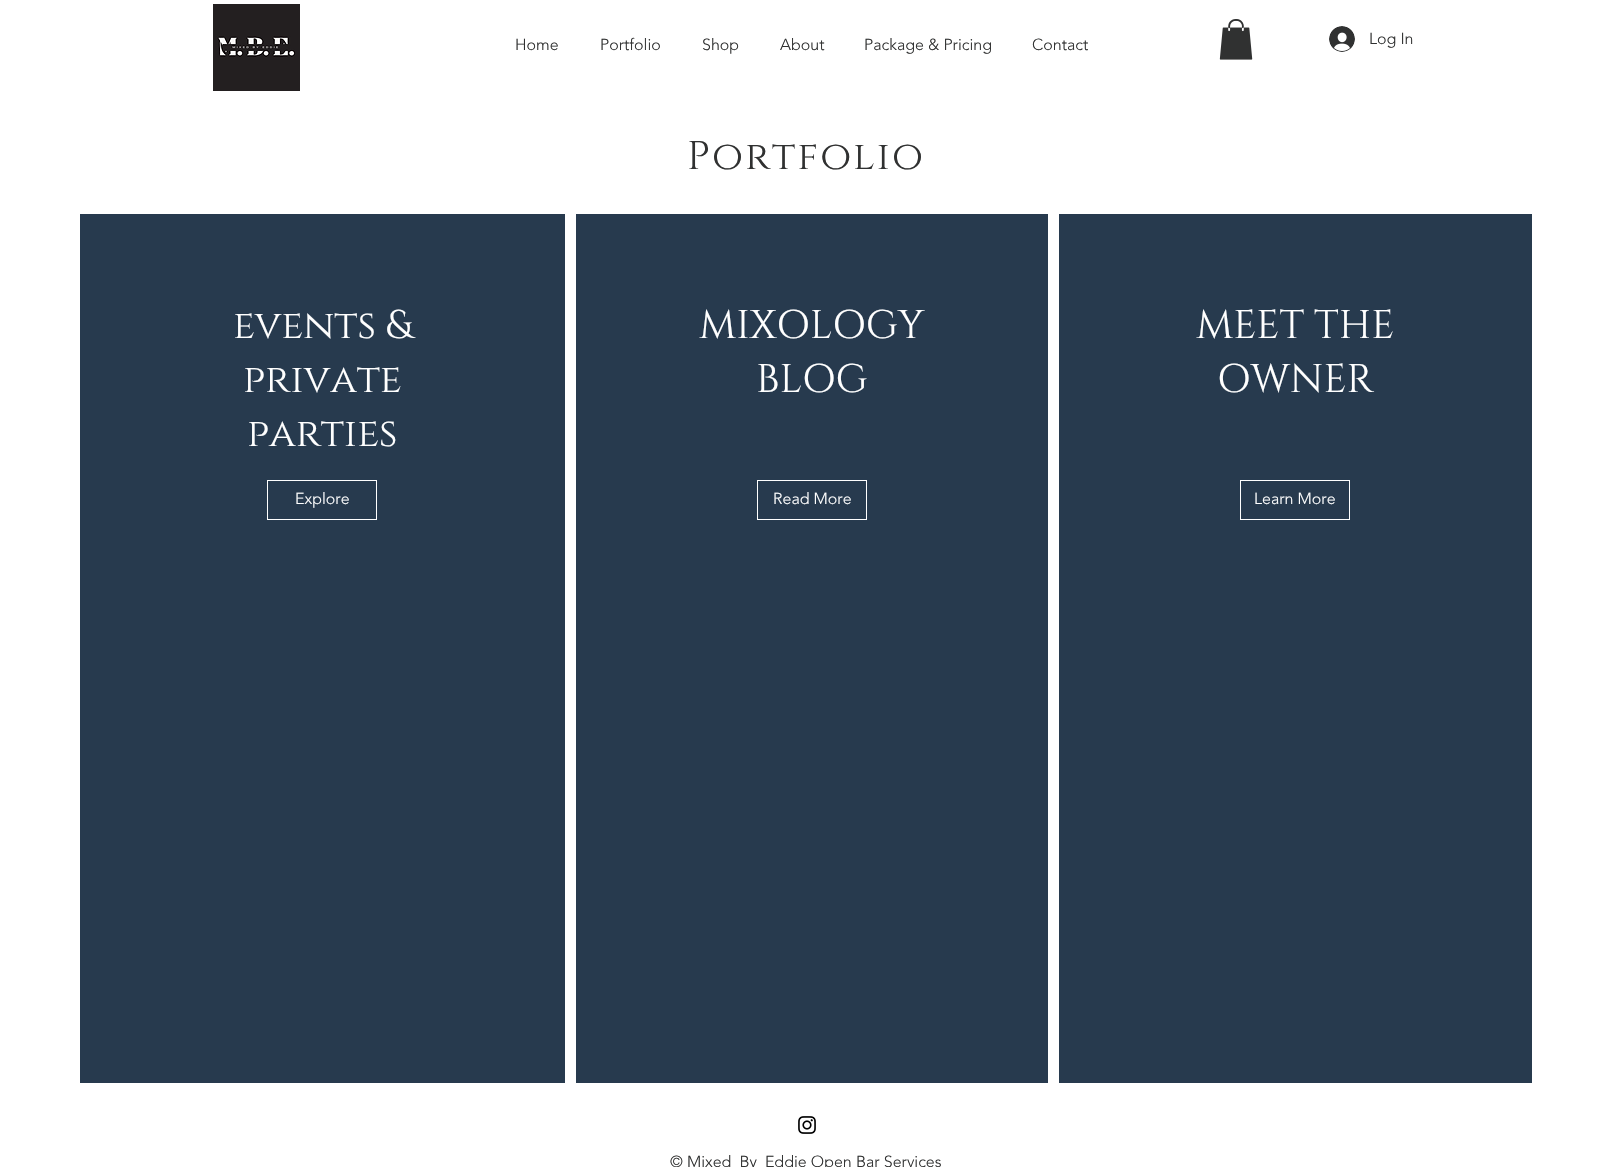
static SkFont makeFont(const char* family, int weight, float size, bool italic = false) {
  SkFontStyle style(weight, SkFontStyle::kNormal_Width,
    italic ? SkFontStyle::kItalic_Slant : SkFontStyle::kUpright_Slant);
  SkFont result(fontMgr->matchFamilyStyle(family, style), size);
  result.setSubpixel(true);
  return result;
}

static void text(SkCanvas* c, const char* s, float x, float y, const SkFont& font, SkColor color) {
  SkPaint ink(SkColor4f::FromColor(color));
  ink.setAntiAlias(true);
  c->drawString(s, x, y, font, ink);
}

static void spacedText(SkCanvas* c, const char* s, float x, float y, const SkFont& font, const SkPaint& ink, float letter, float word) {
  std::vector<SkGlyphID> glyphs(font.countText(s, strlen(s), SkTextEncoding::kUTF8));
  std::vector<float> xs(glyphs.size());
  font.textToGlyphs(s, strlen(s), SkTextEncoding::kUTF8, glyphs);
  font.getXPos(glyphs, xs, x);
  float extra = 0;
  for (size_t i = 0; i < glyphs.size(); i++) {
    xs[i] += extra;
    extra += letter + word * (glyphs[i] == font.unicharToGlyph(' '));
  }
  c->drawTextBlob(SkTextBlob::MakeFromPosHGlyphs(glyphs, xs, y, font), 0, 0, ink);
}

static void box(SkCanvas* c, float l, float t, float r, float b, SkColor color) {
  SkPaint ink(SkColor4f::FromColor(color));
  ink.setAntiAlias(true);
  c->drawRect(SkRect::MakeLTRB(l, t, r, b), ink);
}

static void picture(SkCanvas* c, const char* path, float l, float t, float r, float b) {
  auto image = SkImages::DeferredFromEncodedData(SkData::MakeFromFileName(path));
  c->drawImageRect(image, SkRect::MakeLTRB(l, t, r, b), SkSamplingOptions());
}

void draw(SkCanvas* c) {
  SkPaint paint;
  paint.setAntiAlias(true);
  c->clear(0xffffffff);
  SkFont face1 = makeFont("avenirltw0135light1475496", 300, 16);
  text(c, "Home", 515, 50, face1, 0xff303131);
  text(c, "Portfolio", 600, 50, face1, 0xff303131);
  text(c, "Shop", 702, 50, face1, 0xff303131);
  text(c, "About", 780, 50, face1, 0xff303131);
  text(c, "Package & Pricing", 864, 50, face1, 0xff303131);
  text(c, "Contact", 1032, 50, face1, 0xff303131);
  picture(c, "img_01.png", 213, 4, 300, 91);
  picture(c, "img_02.png", 1219, 19, 1253, 60);
  picture(c, "img_03.png", 1329, 26, 1355, 52);
  text(c, "Log In", 1369, 44, face1, 0xff303131);
  SkFont face2 = makeFont("Cinzel", 400, 40);
  paint.setColor(0xff303131);
  spacedText(c, "Portfolio", 687, 169, face2, paint, 2, 0);
  box(c, 80, 214, 565, 1083, 0xff273a4e);
  text(c, "events &", 233, 338, face2, 0xffffffff);
  text(c, "private", 243, 392, face2, 0xffffffff);
  text(c, "parties", 247, 446, face2, 0xffffffff);
  paint.setStyle(SkPaint::kStroke_Style);
  paint.setStrokeWidth(1);
  paint.setColor(0xffffffff);
  c->drawRect(SkRect::MakeLTRB(267.5f, 480.5f, 376.5f, 519.5f), paint);
  text(c, "Explore", 295, 504, face1, 0xffffffff);
  box(c, 576, 214, 1048, 1083, 0xff273a4e);
  text(c, "MIXOLOGY", 699, 338, face2, 0xffffffff);
  text(c, "BLOG", 756, 392, face2, 0xffffffff);
  c->drawRect(SkRect::MakeLTRB(757.5f, 480.5f, 866.5f, 519.5f), paint);
  text(c, "Read More", 773, 504, face1, 0xffffffff);
  box(c, 1059, 214, 1532, 1083, 0xff273a4e);
  text(c, "MEET THE", 1196, 338, face2, 0xffffffff);
  text(c, "OWNER", 1217, 392, face2, 0xffffffff);
  c->drawRect(SkRect::MakeLTRB(1240.5f, 480.5f, 1349.5f, 519.5f), paint);
  text(c, "Learn More", 1254, 504, face1, 0xffffffff);
  picture(c, "img_04.png", 798, 1116, 816, 1134);
  text(c, "© Mixed_By_Eddie Open Bar Services", 670, 1167, face1, 0xff303131);
}
